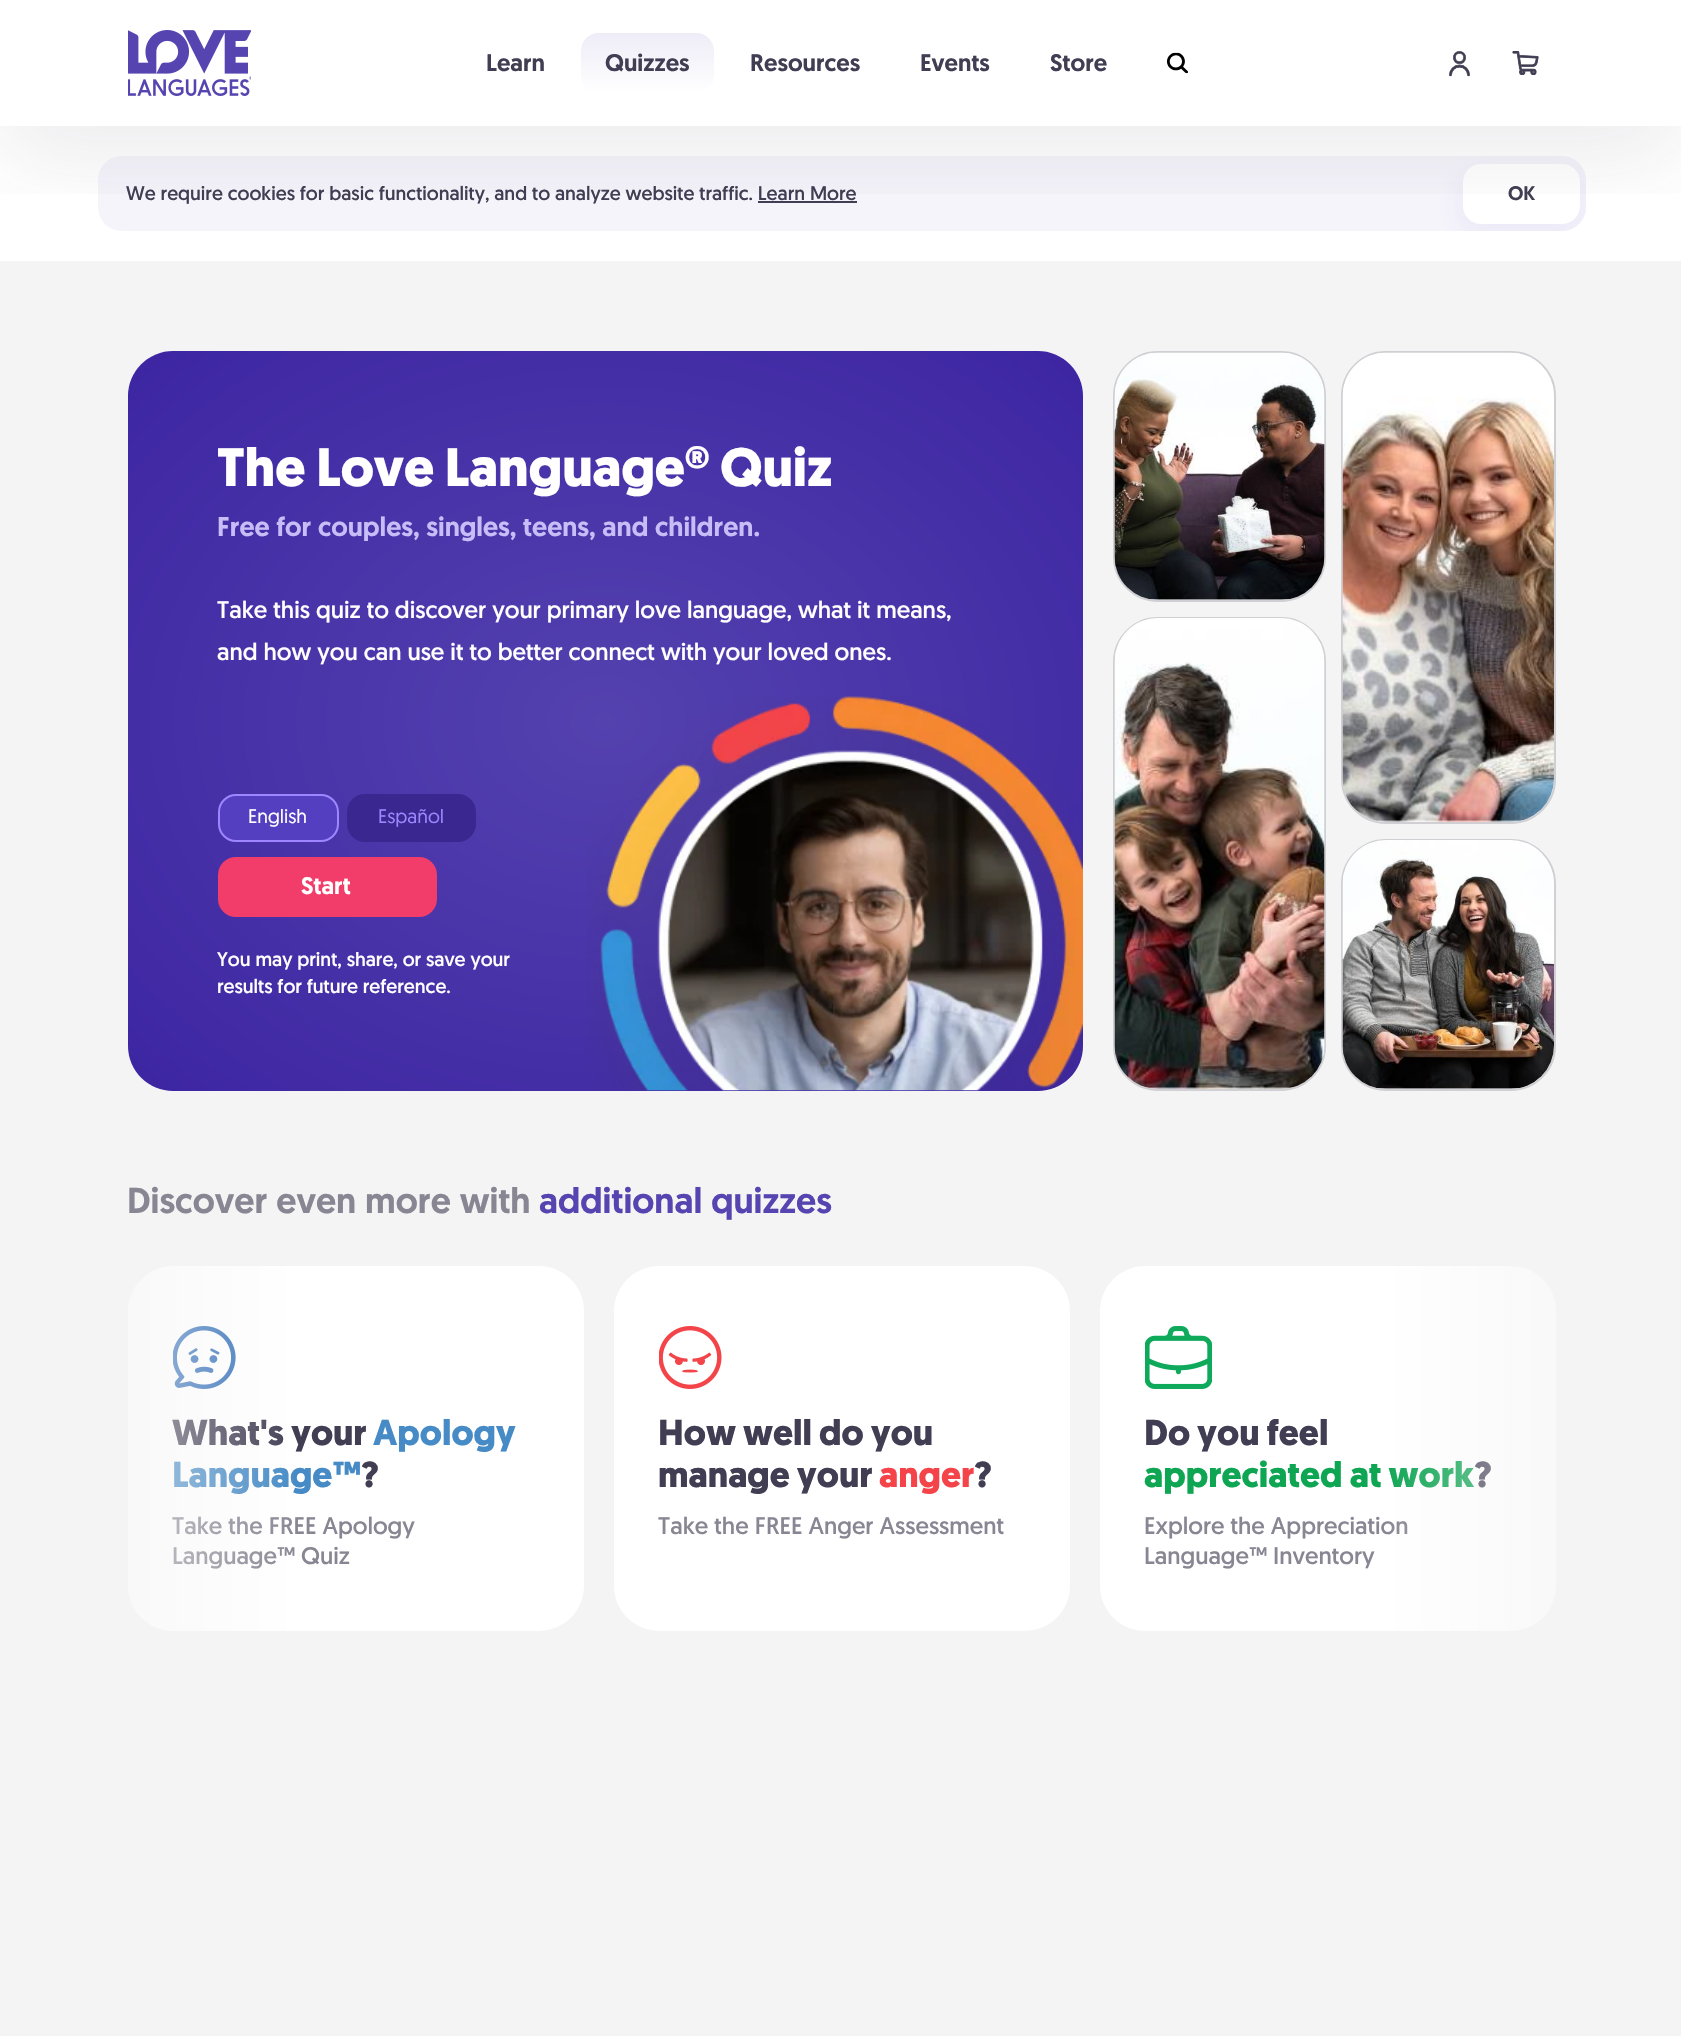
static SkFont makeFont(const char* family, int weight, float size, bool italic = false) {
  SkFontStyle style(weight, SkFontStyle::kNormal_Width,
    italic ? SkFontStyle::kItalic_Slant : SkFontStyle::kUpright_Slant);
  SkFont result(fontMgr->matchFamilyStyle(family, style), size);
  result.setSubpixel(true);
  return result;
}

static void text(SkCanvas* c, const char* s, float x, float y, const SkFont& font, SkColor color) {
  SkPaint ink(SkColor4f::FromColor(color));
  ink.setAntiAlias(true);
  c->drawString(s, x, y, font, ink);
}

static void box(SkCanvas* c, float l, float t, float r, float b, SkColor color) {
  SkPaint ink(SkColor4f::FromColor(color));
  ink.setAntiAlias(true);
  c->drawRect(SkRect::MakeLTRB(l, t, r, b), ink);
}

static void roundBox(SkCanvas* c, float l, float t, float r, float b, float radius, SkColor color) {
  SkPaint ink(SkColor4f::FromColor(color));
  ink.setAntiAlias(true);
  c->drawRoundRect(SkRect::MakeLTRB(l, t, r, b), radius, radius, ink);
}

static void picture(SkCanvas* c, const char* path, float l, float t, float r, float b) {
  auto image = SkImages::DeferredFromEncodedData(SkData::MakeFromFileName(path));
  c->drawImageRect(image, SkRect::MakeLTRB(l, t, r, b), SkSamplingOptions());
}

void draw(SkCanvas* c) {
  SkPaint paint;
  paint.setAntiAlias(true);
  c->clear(0xffffffff);
  roundBox(c, 98, 156, 1586, 231, 24, 0xfff5f4fb);
  c->save();
  c->clipPath(SkPathBuilder().moveTo(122, 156).lineTo(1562, 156).cubicTo(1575.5f, 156, 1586, 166.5f, 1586, 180).lineTo(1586, 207).cubicTo(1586, 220.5f, 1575.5f, 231, 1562, 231).lineTo(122, 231).cubicTo(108.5f, 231, 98, 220.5f, 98, 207).lineTo(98, 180).cubicTo(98, 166.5f, 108.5f, 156, 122, 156).close().detach(), true);
  paint.setColor(0x145042b1);
  paint.setMaskFilter(SkMaskFilter::MakeBlur(kNormal_SkBlurStyle, 15));
  c->drawRoundRect(SkRect::MakeLTRB(1463, 173, 1580, 233), 18, 18, paint);
  paint.setMaskFilter(nullptr);
  c->restore();
  box(c, 0, 261, 1681, 2036, 0xfff4f4f4);
  box(c, 758, 201, 857, 203, 0xff413e53);
  roundBox(c, 1463, 164, 1580, 224, 18, 0xffffffff);
  c->save();
  c->clipRect(SkRect::MakeLTRB(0, 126, 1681, 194));
  paint.setColor(0x1a413e53);
  paint.setMaskFilter(SkMaskFilter::MakeBlur(kNormal_SkBlurStyle, 45));
  c->drawRect(SkRect::MakeLTRB(0, 30, 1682, 156), paint);
  paint.setMaskFilter(nullptr);
  c->restore();
  picture(c, "img_01.png", 128, 30, 251, 96);
  SkFont face1 = makeFont("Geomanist", 500, 24);
  text(c, "Learn", 486, 71, face1, 0xff413e53);
  {
    const SkColor colors[] = {0xffeeecf7, 0xffffffff};
    const float stops[] = {0, 1};
    const SkPoint ends[] = {{647, 33}, {647, 93}};
    paint.setShader(SkGradientShader::MakeLinear(ends, colors, stops, 2, SkTileMode::kClamp));
    paint.setAlpha(255);
  }
  c->drawRoundRect(SkRect::MakeLTRB(581, 33, 714, 93), 18, 18, paint);
  text(c, "Quizzes", 605, 71, face1, 0xff413e53);
  text(c, "Resources", 750, 71, face1, 0xff413e53);
  text(c, "Events", 920, 71, face1, 0xff413e53);
  text(c, "Store", 1050, 71, face1, 0xff413e53);
  picture(c, "img_02.png", 1167, 52, 1188, 74);
  picture(c, "img_03.png", 1449, 51, 1470, 77);
  picture(c, "img_04.png", 1512, 51, 1539, 75);
  {
    const SkColor colors[] = {0xff5442af, 0xff3d25a2};
    const float stops[] = {0, 1};
    SkMatrix m = SkMatrix::Translate(605, 721).preScale(676, 523);
    paint.setShader(SkGradientShader::MakeRadial({0, 0}, 1, colors, stops, 2, SkTileMode::kClamp, 0, &m));
    paint.setAlpha(255);
  }
  c->drawRoundRect(SkRect::MakeLTRB(128, 351, 1083, 1091), 45, 45, paint);
  SkFont face2 = makeFont("Geomanist", 700, 54);
  text(c, "The Love Language® Quiz", 217, 486, face2, 0xffffffff);
  SkFont face3 = makeFont("Geomanist", 500, 27);
  text(c, "Free for couples, singles, teens, and children.", 217, 536, face3, 0xffc7bef7);
  SkFont face4 = makeFont("Geomanist", 400, 24);
  text(c, "Take this quiz to discover your primary love language, what it means,", 217, 618, face4, 0xffffffff);
  text(c, "and how you can use it to better connect with your loved ones.", 217, 660, face4, 0xffffffff);
  paint.setShader(nullptr);
  paint.setColor(0xff553fc1);
  c->drawRoundRect(SkRect::MakeLTRB(219, 795, 338, 841), 17, 17, paint);
  paint.setStyle(SkPaint::kStroke_Style);
  paint.setStrokeWidth(2);
  paint.setColor(0xff9d86ff);
  c->drawRoundRect(SkRect::MakeLTRB(219, 795, 338, 841), 17, 17, paint);
  SkFont face5 = makeFont("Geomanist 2", 400, 19.5f);
  text(c, "English", 248, 823, face5, 0xffffffff);
  paint.setStyle(SkPaint::kFill_Style);
  paint.setColor(0xff3a2890);
  c->drawRoundRect(SkRect::MakeLTRB(348, 795, 475, 841), 17, 17, paint);
  paint.setStyle(SkPaint::kStroke_Style);
  c->drawRoundRect(SkRect::MakeLTRB(348, 795, 475, 841), 17, 17, paint);
  text(c, "Español", 378, 823, face5, 0xff9d86ff);
  picture(c, "img_05.png", 586, 696, 1083, 1091);
  roundBox(c, 218, 857, 437, 917, 18, 0xfff23d6a);
  text(c, "Start", 301, 894, face1, 0xffffffff);
  SkFont face6 = makeFont("Geomanist", 400, 19.5f);
  text(c, "You may print, share, or save your", 217, 966, face6, 0xffffffff);
  text(c, "results for future reference.", 217, 993, face6, 0xffffffff);
  paint.setColor(0xffd0d0d4);
  c->drawRoundRect(SkRect::MakeLTRB(1114, 352, 1325, 601), 44, 44, paint);
  picture(c, "img_06.png", 1114, 352, 1325, 600);
  c->drawRoundRect(SkRect::MakeLTRB(1342, 352, 1555, 823), 44, 44, paint);
  picture(c, "img_07.png", 1342, 352, 1554, 822);
  c->drawRoundRect(SkRect::MakeLTRB(1114, 618, 1325, 1090), 44, 44, paint);
  picture(c, "img_08.png", 1114, 618, 1325, 1089);
  c->drawRoundRect(SkRect::MakeLTRB(1342, 840, 1555, 1090), 44, 44, paint);
  picture(c, "img_09.png", 1342, 840, 1554, 1089);
  SkFont face7 = makeFont("Geomanist", 500, 36);
  text(c, "Discover even more with", 127, 1213, face7, 0xff888693);
  text(c, "additional quizzes", 539, 1213, face7, 0xff5644b0);
  roundBox(c, 128, 1266, 584, 1631, 45, 0xffffffff);
  picture(c, "img_10.png", 173, 1326, 236, 1389);
  SkFont face8 = makeFont("Geomanist", 700, 36);
  text(c, "What's your", 172, 1445, face8, 0xff413e53);
  text(c, "Language™", 172, 1487, face8, 0xff468bc6);
  text(c, "Take the FREE Apology", 172, 1534, face4, 0xff888693);
  text(c, "Language™ Quiz", 172, 1564, face4, 0xff888693);
  paint.setStyle(SkPaint::kFill_Style);
  {
    const SkColor colors[] = {0xfff4f4f4, 0x00f4f4f4};
    const float stops[] = {0, 1};
    const SkPoint ends[] = {{0, 1478}, {300, 1478}};
    paint.setShader(SkGradientShader::MakeLinear(ends, colors, stops, 2, SkTileMode::kClamp));
    paint.setAlpha(255);
  }
  c->drawRect(SkRect::MakeLTRB(128, 1266, 294, 1631), paint);
  roundBox(c, 1100, 1266, 1556, 1631, 45, 0xffffffff);
  text(c, "appreciated at work", 1144, 1487, face8, 0xff0ea553);
  text(c, "?", 1474, 1487, face8, 0xff413e53);
  text(c, "Explore the Appreciation", 1144, 1534, face4, 0xff888693);
  {
    const SkColor colors[] = {0x00f4f4f4, 0xfff4f4f4};
    const float stops[] = {0, 1};
    const SkPoint ends[] = {{1382, 1478}, {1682, 1478}};
    paint.setShader(SkGradientShader::MakeLinear(ends, colors, stops, 2, SkTileMode::kClamp));
    paint.setAlpha(255);
  }
  c->drawRect(SkRect::MakeLTRB(1389, 1266, 1556, 1631), paint);
  text(c, "Apology", 373, 1445, face8, 0xff468bc6);
  text(c, "?", 361, 1487, face8, 0xff413e53);
  roundBox(c, 614, 1266, 1070, 1631, 45, 0xffffffff);
  picture(c, "img_11.png", 659, 1326, 722, 1389);
  text(c, "How well do you", 658, 1445, face8, 0xff413e53);
  text(c, "manage your", 658, 1487, face8, 0xff413e53);
  text(c, "anger", 879, 1487, face8, 0xfff54449);
  text(c, "?", 974, 1487, face8, 0xff413e53);
  text(c, "Take the FREE Anger Assessment", 658, 1534, face4, 0xff888693);
  picture(c, "img_12.png", 1145, 1326, 1212, 1389);
  text(c, "Do you feel", 1144, 1445, face8, 0xff413e53);
  text(c, "Language™ Inventory", 1144, 1564, face4, 0xff888693);
  text(c, "We require cookies for basic functionality, and to analyze website traffic. Learn More", 126, 200, face6, 0xff413e53);
  SkFont face9 = makeFont("Geomanist", 500, 19.5f);
  text(c, "OK", 1508, 200, face9, 0xff413e53);
}
